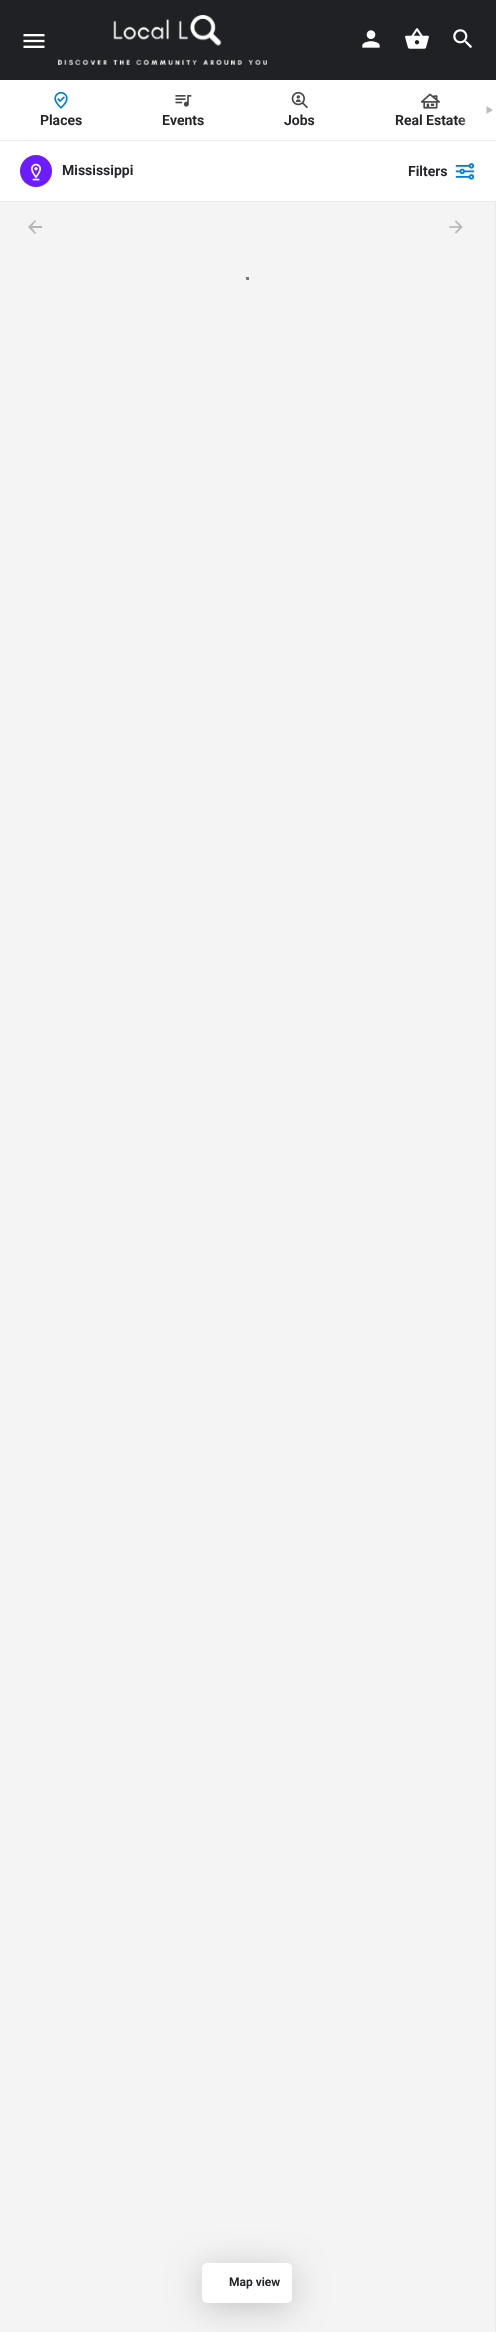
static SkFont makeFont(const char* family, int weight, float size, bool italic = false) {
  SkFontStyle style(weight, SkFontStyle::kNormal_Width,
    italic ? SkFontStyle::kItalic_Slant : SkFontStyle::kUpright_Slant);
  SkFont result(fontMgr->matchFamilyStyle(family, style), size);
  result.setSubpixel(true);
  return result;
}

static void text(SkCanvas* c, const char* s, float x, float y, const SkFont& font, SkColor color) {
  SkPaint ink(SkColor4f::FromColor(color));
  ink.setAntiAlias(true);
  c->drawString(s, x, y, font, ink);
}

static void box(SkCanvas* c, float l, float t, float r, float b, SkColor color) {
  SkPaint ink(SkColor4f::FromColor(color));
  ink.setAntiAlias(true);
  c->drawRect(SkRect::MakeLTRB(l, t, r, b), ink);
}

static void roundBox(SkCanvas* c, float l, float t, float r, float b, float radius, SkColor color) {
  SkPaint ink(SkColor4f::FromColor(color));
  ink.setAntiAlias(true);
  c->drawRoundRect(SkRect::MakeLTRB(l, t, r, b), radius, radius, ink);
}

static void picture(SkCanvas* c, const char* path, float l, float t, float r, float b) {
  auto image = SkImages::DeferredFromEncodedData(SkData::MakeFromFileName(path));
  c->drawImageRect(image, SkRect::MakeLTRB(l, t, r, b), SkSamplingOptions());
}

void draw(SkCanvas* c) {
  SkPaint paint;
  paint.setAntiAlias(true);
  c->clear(0xfff4f4f4);
  box(c, 0, 0, 496, 80, 0xff202125);
  picture(c, "img_01.png", 23, 34, 45, 48);
  picture(c, "img_02.png", 58, 15, 267, 65);
  picture(c, "img_03.png", 362, 30, 380, 48);
  picture(c, "img_04.png", 405, 28, 429, 49);
  picture(c, "img_05.png", 453, 29, 473, 49);
  box(c, 0, 80, 488, 140, 0xffffffff);
  box(c, 0, 140, 496, 141, 0xffebebeb);
  picture(c, "img_06.png", 54, 91, 68, 109);
  SkFont face1 = makeFont("Roboto", 600, 14);
  text(c, "Places", 40, 125, face1, 0xff242429);
  picture(c, "img_07.png", 175, 95, 192, 107);
  text(c, "Events", 162, 125, face1, 0xff242429);
  picture(c, "img_08.png", 291, 91, 308, 109);
  text(c, "Jobs", 284, 125, face1, 0xff242429);
  picture(c, "img_09.png", 420, 93, 440, 109);
  text(c, "Real Estate", 395, 125, face1, 0xff242429);
  {
    const SkColor colors[] = {0x00ffffff, 0xffffffff};
    const float stops[] = {0, 0.8f};
    const SkPoint ends[] = {{457, 110}, {496, 110}};
    paint.setShader(SkGradientShader::MakeLinear(ends, colors, stops, 2, SkTileMode::kClamp));
    paint.setAlpha(255);
  }
  c->drawRect(SkRect::MakeLTRB(459, 80, 496, 140), paint);
  paint.setShader(nullptr);
  paint.setColor(0xffbdbdbf);
  c->drawPath(SkPathBuilder().moveTo(486.5f, 106).lineTo(493, 110).lineTo(486.5f, 114).close().detach(), paint);
  box(c, 0, 141, 496, 201, 0xffffffff);
  box(c, 0, 201, 496, 202, 0xffebebeb);
  paint.setColor(0xff6c1cff);
  c->drawCircle(36, 171, 16, paint);
  picture(c, "img_10.png", 31, 163, 41, 181);
  text(c, "Mississippi", 62, 175, face1, 0xff242429);
  text(c, "Filters", 408, 176, face1, 0xff242429);
  picture(c, "img_11.png", 455, 163, 475, 180);
  box(c, 495, 202, 496, 2332, 0xffebebeb);
  paint.setColor(0xffb6b6b7);
  c->drawPath(SkPathBuilder().moveTo(42, 226).lineTo(42, 228).lineTo(32, 228).lineTo(36, 233).lineTo(35, 234).lineTo(28, 227).lineTo(35, 220).lineTo(36, 221).lineTo(32, 226).close().moveTo(45, 237).lineTo(45, 237).close().moveTo(65, 237).lineTo(65, 237).close().moveTo(85, 237).lineTo(85, 237).close().moveTo(105, 237).lineTo(105, 237).close().detach(), paint);
  picture(c, "img_12.png", 449, 220, 463, 234);
  c->save();
  c->clipRect(SkRect::MakeLTRB(234, 277, 248, 305));
  paint.setStyle(SkPaint::kStroke_Style);
  paint.setStrokeWidth(3);
  paint.setColor(0xff777777);
  c->drawPath(SkPathBuilder().moveTo(246.5f, 278.5f).cubicTo(263, 277, 265, 302, 248.5f, 303.5f).detach(), paint);
  c->restore();
  c->save();
  c->clipRect(SkRect::MakeLTRB(246, 277, 249, 305));
  c->drawPath(SkPathBuilder().moveTo(239, 300).cubicTo(229, 289.5f, 242, 272, 254, 280.5f).cubicTo(257, 282.5f, 258.5f, 285.5f, 259.5f, 288.5f).cubicTo(260, 292.5f, 259, 297, 256, 300).detach(), paint);
  c->restore();
  c->save();
  c->clipRect(SkRect::MakeLTRB(248, 277, 262, 305));
  c->drawPath(SkPathBuilder().moveTo(246.5f, 303.5f).cubicTo(230, 302, 232, 277, 248.5f, 278.5f).detach(), paint);
  c->restore();
  paint.setStyle(SkPaint::kFill_Style);
  paint.setColor(0x33000000);
  paint.setMaskFilter(SkMaskFilter::MakeBlur(kNormal_SkBlurStyle, 16.5f));
  c->drawRoundRect(SkRect::MakeLTRB(202, 2268, 292, 2308), 5, 5, paint);
  paint.setMaskFilter(nullptr);
  roundBox(c, 202, 2263, 292, 2303, 5, 0xffffffff);
  SkFont face2 = makeFont("Roboto", 600, 12);
  text(c, "Map view", 229, 2286, face2, 0xff242429);
}
